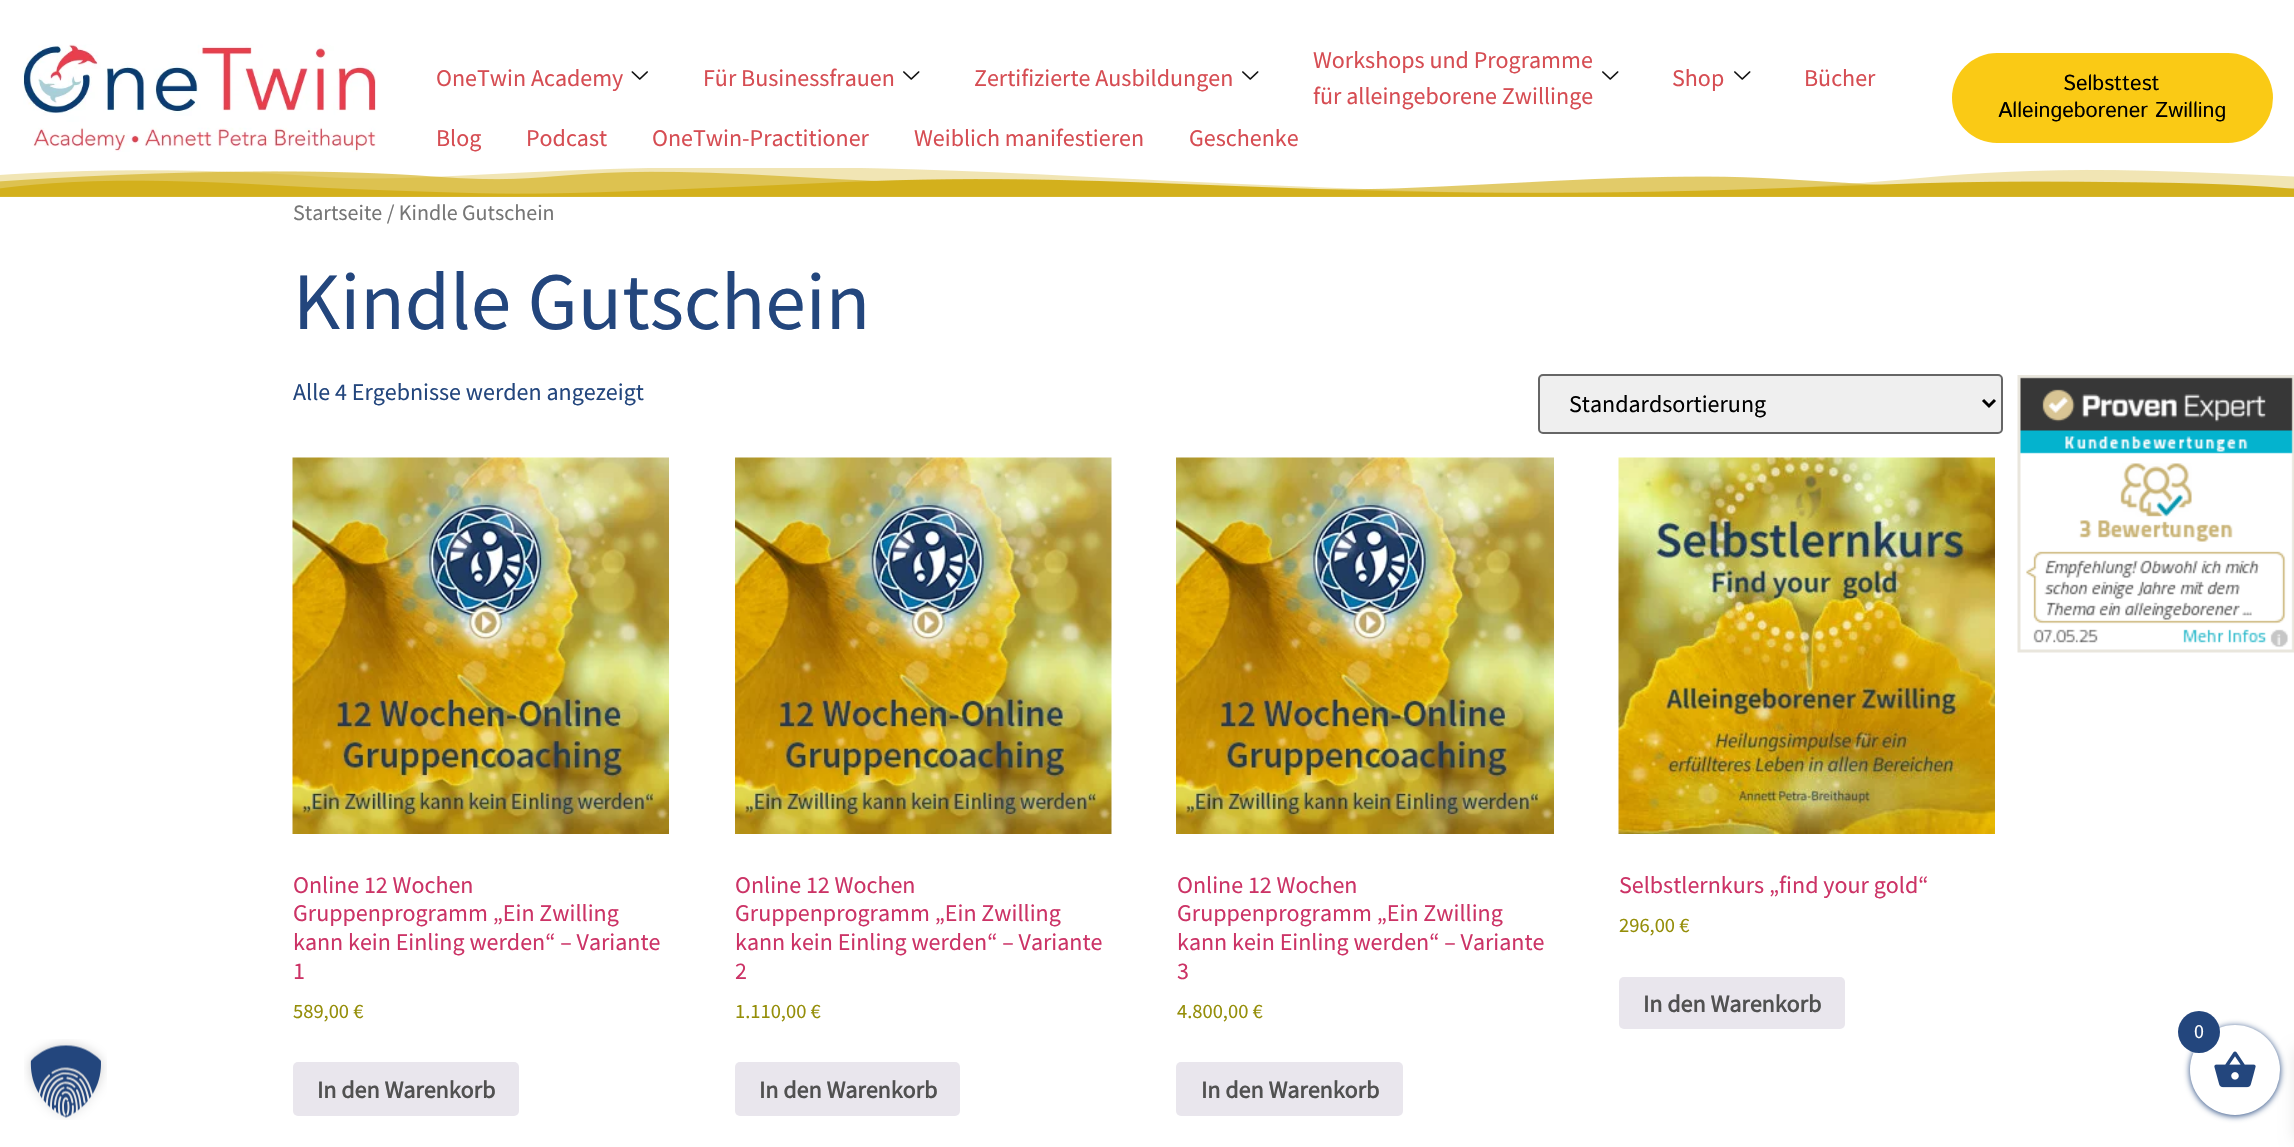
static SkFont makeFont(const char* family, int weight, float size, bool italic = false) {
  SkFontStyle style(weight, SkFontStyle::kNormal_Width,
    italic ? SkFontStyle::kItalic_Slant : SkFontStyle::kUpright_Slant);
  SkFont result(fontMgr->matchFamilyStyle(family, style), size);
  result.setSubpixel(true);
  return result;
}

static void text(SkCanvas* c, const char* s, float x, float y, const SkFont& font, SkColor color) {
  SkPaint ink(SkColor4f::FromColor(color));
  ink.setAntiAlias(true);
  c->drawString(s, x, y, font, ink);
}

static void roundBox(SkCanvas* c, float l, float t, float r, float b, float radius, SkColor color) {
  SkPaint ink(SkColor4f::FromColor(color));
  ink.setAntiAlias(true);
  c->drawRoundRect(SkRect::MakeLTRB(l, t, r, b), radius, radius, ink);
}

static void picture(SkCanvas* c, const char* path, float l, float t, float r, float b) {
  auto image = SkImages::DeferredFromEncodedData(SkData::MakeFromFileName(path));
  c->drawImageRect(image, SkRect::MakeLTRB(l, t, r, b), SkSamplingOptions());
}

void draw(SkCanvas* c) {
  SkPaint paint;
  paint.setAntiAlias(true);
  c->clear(0xffffffff);
  picture(c, "img_01.png", 23, 44, 376, 152);
  SkFont face1 = makeFont("Source Sans Pro", 400, 24);
  text(c, "OneTwin Academy", 436, 86, face1, 0xffd64d53);
  picture(c, "img_02.png", 631, 71, 648, 80);
  text(c, "Für Businessfrauen", 703, 86, face1, 0xffd64d53);
  picture(c, "img_03.png", 903, 71, 920, 80);
  text(c, "Zertifizierte Ausbildungen", 974, 86, face1, 0xffd64d53);
  picture(c, "img_03.png", 1242, 71, 1259, 80);
  text(c, "Workshops und Programme", 1313, 68, face1, 0xffd64d53);
  picture(c, "img_03.png", 1602, 71, 1619, 80);
  text(c, "für alleingeborene Zwillinge", 1313, 104, face1, 0xffd64d53);
  text(c, "Shop", 1672, 86, face1, 0xffd64d53);
  picture(c, "img_03.png", 1734, 71, 1751, 80);
  text(c, "Bücher", 1804, 86, face1, 0xffd64d53);
  text(c, "Blog", 436, 146, face1, 0xffd64d53);
  text(c, "Podcast", 526, 146, face1, 0xffd64d53);
  text(c, "OneTwin-Practitioner", 652, 146, face1, 0xffd64d53);
  text(c, "Weiblich manifestieren", 914, 146, face1, 0xffd64d53);
  text(c, "Geschenke", 1189, 146, face1, 0xffd64d53);
  roundBox(c, 1952, 53, 2273, 143, 45, 0xfffaca15);
  SkFont face2 = makeFont("Istok Web", 400, 21.6f);
  text(c, "Selbsttest", 2063, 90, face2, 0xff000000);
  text(c, "Alleingeborener Zwilling", 1998, 117, face2, 0xff000000);
  picture(c, "img_04.png", 0, 168, 2294, 197);
  SkFont face3 = makeFont("Source Sans Pro", 400, 22);
  text(c, "Startseite / Kindle Gutschein", 293, 220, face3, 0xff767676);
  SkFont face4 = makeFont("Source Sans Pro", 400, 81.5f);
  text(c, "Kindle Gutschein", 293, 329, face4, 0xff23467d);
  text(c, "Alle 4 Ergebnisse werden angezeigt", 293, 400, face1, 0xff23467d);
  paint.setColor(0xffefefef);
  c->drawRoundRect(SkRect::MakeLTRB(1539, 375, 2002, 433), 4, 4, paint);
  paint.setStyle(SkPaint::kStroke_Style);
  paint.setStrokeWidth(2);
  paint.setColor(0xff666666);
  c->drawRoundRect(SkRect::MakeLTRB(1539, 375, 2002, 433), 4, 4, paint);
  paint.setStrokeWidth(3);
  paint.setColor(0xff000000);
  c->drawPath(SkPathBuilder().moveTo(1983, 400).lineTo(1989, 406).lineTo(1995, 400).detach(), paint);
  text(c, "Standardsortierung", 1569, 412, face1, 0xff000000);
  picture(c, "img_05.png", 292, 457, 669, 834);
  text(c, "Online 12 Wochen", 293, 893, face1, 0xffcc3366);
  text(c, "Gruppenprogramm „Ein Zwilling", 293, 921, face1, 0xffcc3366);
  text(c, "kann kein Einling werden“ – Variante", 293, 950, face1, 0xffcc3366);
  text(c, "1", 293, 979, face1, 0xffcc3366);
  SkFont face5 = makeFont("Source Sans Pro", 400, 20.5f);
  text(c, "589,00 €", 293, 1018, face5, 0xff958e09);
  roundBox(c, 293, 1062, 519, 1116, 5, 0xffe9e6ed);
  SkFont face6 = makeFont("Source Sans Pro", 700, 24);
  text(c, "In den Warenkorb", 317, 1098, face6, 0xff515151);
  picture(c, "img_06.png", 735, 457, 1112, 834);
  text(c, "Online 12 Wochen", 735, 893, face1, 0xffcc3366);
  text(c, "Gruppenprogramm „Ein Zwilling", 735, 921, face1, 0xffcc3366);
  text(c, "kann kein Einling werden“ – Variante", 735, 950, face1, 0xffcc3366);
  text(c, "2", 735, 979, face1, 0xffcc3366);
  text(c, "1.110,00 €", 735, 1018, face5, 0xff958e09);
  roundBox(c, 735, 1062, 960, 1116, 5, 0xffe9e6ed);
  text(c, "In den Warenkorb", 759, 1098, face6, 0xff515151);
  picture(c, "img_07.png", 1176, 457, 1554, 834);
  text(c, "Online 12 Wochen", 1177, 893, face1, 0xffcc3366);
  text(c, "Gruppenprogramm „Ein Zwilling", 1177, 921, face1, 0xffcc3366);
  text(c, "kann kein Einling werden“ – Variante", 1177, 950, face1, 0xffcc3366);
  text(c, "3", 1177, 979, face1, 0xffcc3366);
  text(c, "4.800,00 €", 1177, 1018, face5, 0xff958e09);
  roundBox(c, 1176, 1062, 1403, 1116, 5, 0xffe9e6ed);
  text(c, "In den Warenkorb", 1201, 1098, face6, 0xff515151);
  picture(c, "img_08.png", 1618, 457, 1995, 834);
  text(c, "Selbstlernkurs „find your gold“", 1619, 893, face1, 0xffcc3366);
  text(c, "296,00 €", 1619, 932, face5, 0xff958e09);
  roundBox(c, 1619, 977, 1845, 1029, 5, 0xffe9e6ed);
  text(c, "In den Warenkorb", 1643, 1012, face6, 0xff515151);
  picture(c, "img_09.png", 2017, 375, 2294, 653);
  paint.setStyle(SkPaint::kFill_Style);
  paint.setColor(0xff23467d);
  paint.setMaskFilter(SkMaskFilter::MakeBlur(kNormal_SkBlurStyle, 3));
  c->drawRoundRect(SkRect::MakeLTRB(2190, 1026, 2280, 1116), 45, 45, paint);
  paint.setMaskFilter(nullptr);
  paint.setColor(0x1a000000);
  paint.setMaskFilter(SkMaskFilter::MakeBlur(kNormal_SkBlurStyle, 7.5f));
  c->drawRect(SkRect::MakeLTRB(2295, 1050, 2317, 1140), paint);
  paint.setMaskFilter(nullptr);
  paint.setColor(0xffffffff);
  c->drawCircle(2235, 1070, 45, paint);
  picture(c, "img_10.png", 2214, 1051, 2256, 1088);
  paint.setColor(0xff23467d);
  c->drawCircle(2199, 1032, 21, paint);
  SkFont face7 = makeFont("Source Sans Pro", 400, 20);
  text(c, "0", 2194, 1038, face7, 0xffffffff);
  picture(c, "img_11.png", 24, 1039, 107, 1120);
}
